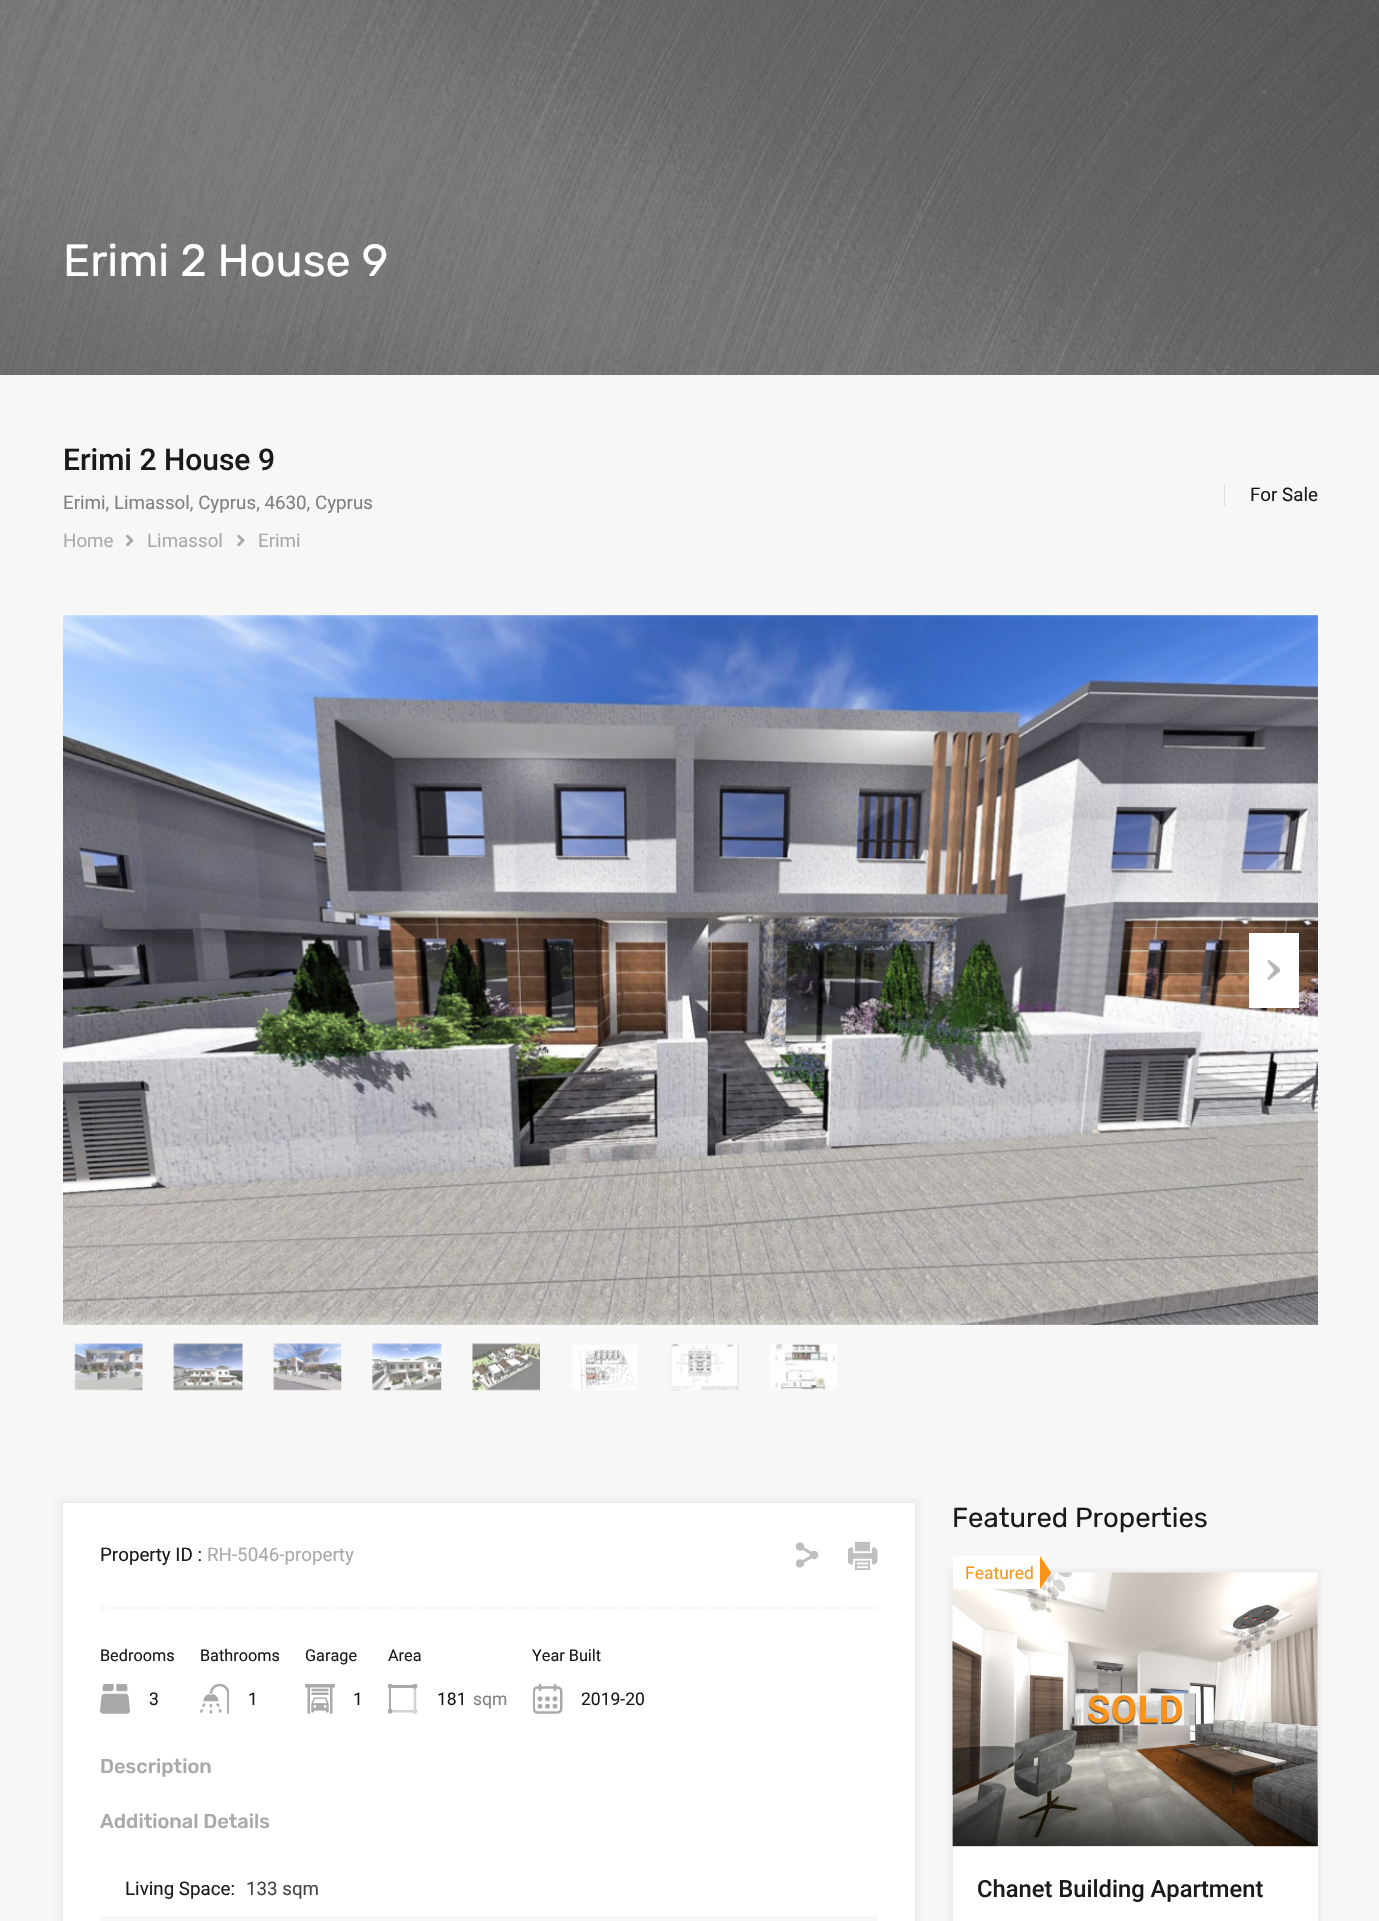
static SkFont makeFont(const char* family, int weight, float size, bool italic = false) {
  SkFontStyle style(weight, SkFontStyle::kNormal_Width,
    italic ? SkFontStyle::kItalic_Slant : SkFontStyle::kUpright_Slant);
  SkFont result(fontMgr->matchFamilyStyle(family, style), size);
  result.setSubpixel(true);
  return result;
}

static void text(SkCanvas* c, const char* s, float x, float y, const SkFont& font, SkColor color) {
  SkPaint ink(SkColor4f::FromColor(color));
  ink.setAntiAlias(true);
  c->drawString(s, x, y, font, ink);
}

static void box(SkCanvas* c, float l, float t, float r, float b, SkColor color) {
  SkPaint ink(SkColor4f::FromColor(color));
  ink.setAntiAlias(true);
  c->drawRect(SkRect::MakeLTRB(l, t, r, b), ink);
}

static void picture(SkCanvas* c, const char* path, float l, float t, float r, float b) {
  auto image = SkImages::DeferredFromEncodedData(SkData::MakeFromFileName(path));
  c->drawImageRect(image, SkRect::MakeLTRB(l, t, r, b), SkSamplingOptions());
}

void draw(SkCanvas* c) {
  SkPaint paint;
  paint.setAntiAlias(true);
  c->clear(0xfff7f7f7);
  picture(c, "img_01.png", 0, 0, 1379, 375);
  SkFont face1 = makeFont("Rubik", 400, 45);
  text(c, "Erimi 2 House 9", 63, 276, face1, 0xffffffff);
  SkFont face2 = makeFont("Roboto", 500, 30);
  text(c, "Erimi 2 House 9", 63, 470, face2, 0xff1a1a1a);
  SkFont face3 = makeFont("Roboto", 400, 18.75f);
  text(c, "Erimi, Limassol, Cyprus, 4630, Cyprus", 63, 509, face3, 0xff808080);
  text(c, "Home", 63, 547, face3, 0xffa9a9a9);
  picture(c, "img_02.png", 126, 534, 134, 547);
  text(c, "Limassol", 147, 547, face3, 0xffa9a9a9);
  picture(c, "img_03.png", 237, 534, 245, 547);
  text(c, "Erimi", 258, 547, face3, 0xffa9a9a9);
  box(c, 1224, 484, 1225, 506, 0xffdfdfdf);
  text(c, "For Sale", 1250, 501, face3, 0xff1a1a1a);
  picture(c, "img_04.png", 63, 615, 1318, 1325);
  box(c, 1249, 933, 1299, 1008, 0xffffffff);
  picture(c, "img_05.png", 1267, 960, 1280, 980);
  picture(c, "img_06.png", 74, 1343, 143, 1391);
  picture(c, "img_07.png", 173, 1343, 243, 1391);
  picture(c, "img_08.png", 273, 1343, 342, 1391);
  picture(c, "img_09.png", 372, 1343, 442, 1391);
  picture(c, "img_10.png", 472, 1343, 540, 1391);
  picture(c, "img_11.png", 572, 1344, 637, 1390);
  picture(c, "img_12.png", 670, 1343, 739, 1391);
  picture(c, "img_13.png", 770, 1343, 837, 1390);
  paint.setColor(0x0d000000);
  paint.setMaskFilter(SkMaskFilter::MakeBlur(kNormal_SkBlurStyle, 3));
  c->drawRect(SkRect::MakeLTRB(60, 1500, 918, 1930), paint);
  paint.setMaskFilter(nullptr);
  box(c, 63, 1503, 915, 1921, 0xffffffff);
  paint.setStyle(SkPaint::kStroke_Style);
  paint.setStrokeWidth(1.2f);
  paint.setColor(0xffe6e6e6);
  paint.setPathEffect(SkDashPathEffect::Make({{3.75f, 2.49f}}, 0));
  c->drawPath(SkPathBuilder().moveTo(100, 1608).lineTo(877.5f, 1608).detach(), paint);
  paint.setPathEffect(nullptr);
  text(c, "Property ID :", 100, 1561, face3, 0xff1a1a1a);
  text(c, "RH-5046-property", 207, 1561, face3, 0xffa9a9a9);
  picture(c, "img_14.png", 796, 1542, 819, 1568);
  picture(c, "img_15.png", 848, 1541, 878, 1570);
  SkFont face4 = makeFont("Roboto", 400, 16.25f);
  text(c, "Bedrooms", 100, 1661, face4, 0xff1a1a1a);
  picture(c, "img_16.png", 100, 1684, 130, 1714);
  SkFont face5 = makeFont("Roboto", 400, 17.5f);
  text(c, "3", 149, 1705, face5, 0xff1a1a1a);
  text(c, "Bathrooms", 200, 1661, face4, 0xff1a1a1a);
  picture(c, "img_17.png", 200, 1684, 229, 1714);
  text(c, "1", 248, 1705, face5, 0xff1a1a1a);
  text(c, "Garage", 305, 1661, face4, 0xff1a1a1a);
  picture(c, "img_18.png", 305, 1684, 335, 1714);
  text(c, "1", 353, 1705, face5, 0xff1a1a1a);
  text(c, "Area", 388, 1661, face4, 0xff1a1a1a);
  picture(c, "img_19.png", 388, 1684, 418, 1714);
  text(c, "181", 437, 1705, face5, 0xff1a1a1a);
  text(c, "sqm", 473, 1705, face5, 0xff808080);
  text(c, "Year Built", 532, 1661, face4, 0xff1a1a1a);
  picture(c, "img_20.png", 533, 1684, 563, 1714);
  text(c, "2019-20", 581, 1705, face5, 0xff1a1a1a);
  SkFont face6 = makeFont("Rubik", 500, 20);
  text(c, "Description", 100, 1773, face6, 0xffa9a9a9);
  text(c, "Additional Details", 100, 1828, face6, 0xffa9a9a9);
  text(c, "Living Space:", 125, 1895, face3, 0xff1a1a1a);
  text(c, "133 sqm", 246, 1895, face3, 0xff444444);
  box(c, 100, 1916, 878, 1921, 0xfff7f7f7);
  SkFont face7 = makeFont("Rubik", 400, 27.5f);
  text(c, "Featured Properties", 952, 1527, face7, 0xff1a1a1a);
  paint.setStyle(SkPaint::kFill_Style);
  paint.setColor(0x0d000000);
  paint.setMaskFilter(SkMaskFilter::MakeBlur(kNormal_SkBlurStyle, 3));
  c->drawRect(SkRect::MakeLTRB(950, 1570, 1320, 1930), paint);
  paint.setMaskFilter(nullptr);
  box(c, 953, 1846, 1318, 1921, 0xffffffff);
  picture(c, "img_21.png", 952, 1572, 1318, 1847);
  box(c, 953, 1556, 1040, 1589, 0xffffffff);
  text(c, "Featured", 965, 1579, face5, 0xfff79418);
  paint.setColor(0xfff79418);
  c->drawPath(SkPathBuilder().moveTo(1040, 1589).lineTo(1040, 1556).lineTo(1051, 1572.5f).close().detach(), paint);
  {
    const SkColor colors[] = {0x00000000, 0xa6000000};
    const float stops[] = {0, 1};
    const SkPoint ends[] = {{1135, 1759}, {1135, 1846}};
    paint.setShader(SkGradientShader::MakeLinear(ends, colors, stops, 2, SkTileMode::kClamp));
    paint.setAlpha(255);
  }
  c->drawRect(SkRect::MakeLTRB(953, 1762, 1318, 1846), paint);
  SkFont face8 = makeFont("Roboto", 500, 23.75f);
  text(c, "Chanet Building Apartment", 977, 1897, face8, 0xff1a1a1a);
}
